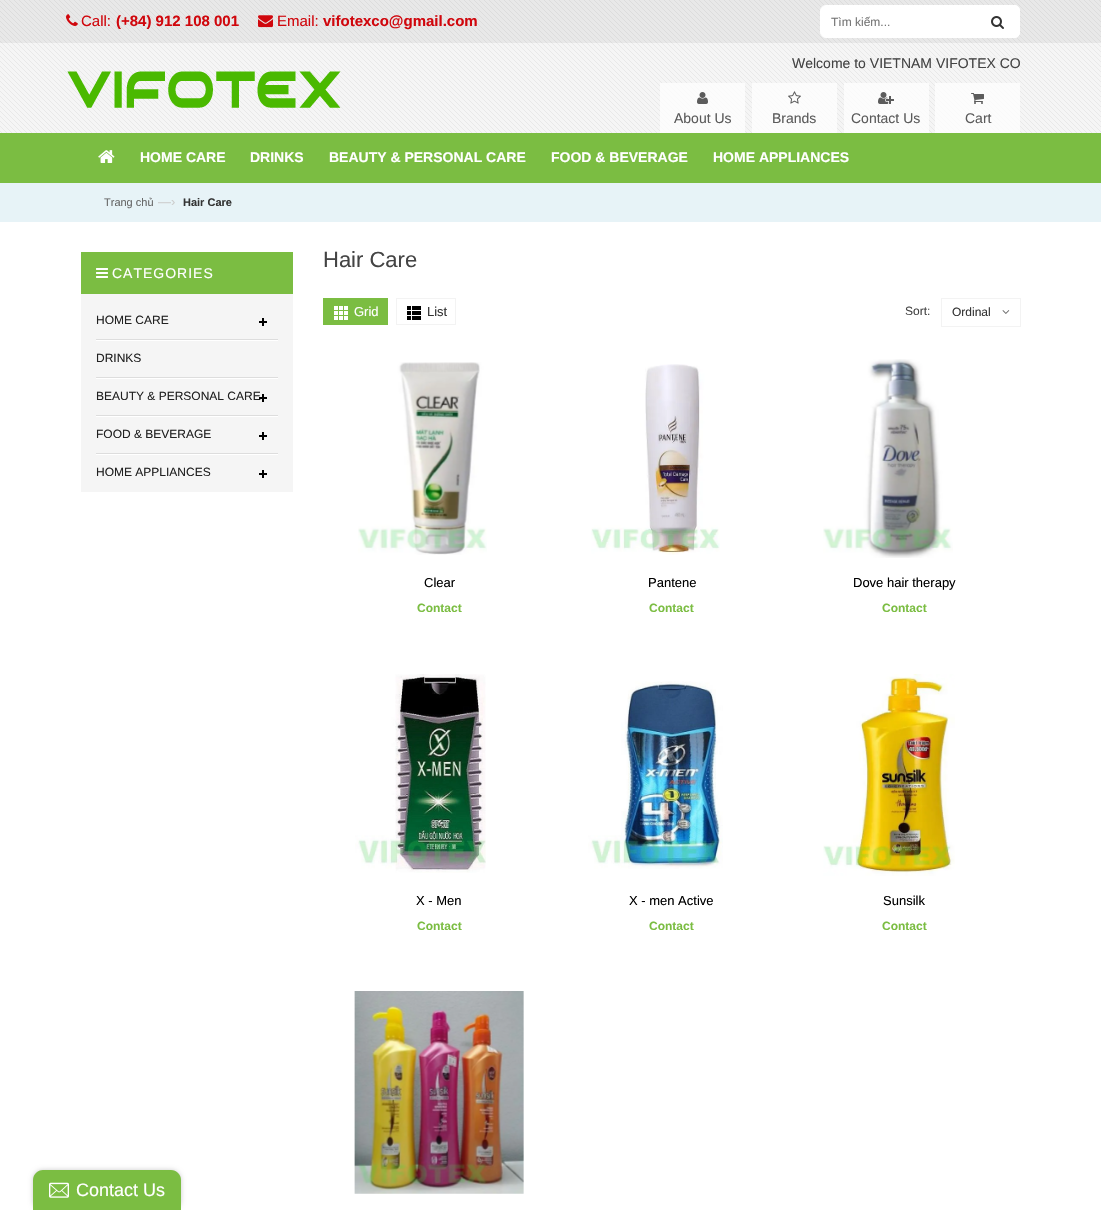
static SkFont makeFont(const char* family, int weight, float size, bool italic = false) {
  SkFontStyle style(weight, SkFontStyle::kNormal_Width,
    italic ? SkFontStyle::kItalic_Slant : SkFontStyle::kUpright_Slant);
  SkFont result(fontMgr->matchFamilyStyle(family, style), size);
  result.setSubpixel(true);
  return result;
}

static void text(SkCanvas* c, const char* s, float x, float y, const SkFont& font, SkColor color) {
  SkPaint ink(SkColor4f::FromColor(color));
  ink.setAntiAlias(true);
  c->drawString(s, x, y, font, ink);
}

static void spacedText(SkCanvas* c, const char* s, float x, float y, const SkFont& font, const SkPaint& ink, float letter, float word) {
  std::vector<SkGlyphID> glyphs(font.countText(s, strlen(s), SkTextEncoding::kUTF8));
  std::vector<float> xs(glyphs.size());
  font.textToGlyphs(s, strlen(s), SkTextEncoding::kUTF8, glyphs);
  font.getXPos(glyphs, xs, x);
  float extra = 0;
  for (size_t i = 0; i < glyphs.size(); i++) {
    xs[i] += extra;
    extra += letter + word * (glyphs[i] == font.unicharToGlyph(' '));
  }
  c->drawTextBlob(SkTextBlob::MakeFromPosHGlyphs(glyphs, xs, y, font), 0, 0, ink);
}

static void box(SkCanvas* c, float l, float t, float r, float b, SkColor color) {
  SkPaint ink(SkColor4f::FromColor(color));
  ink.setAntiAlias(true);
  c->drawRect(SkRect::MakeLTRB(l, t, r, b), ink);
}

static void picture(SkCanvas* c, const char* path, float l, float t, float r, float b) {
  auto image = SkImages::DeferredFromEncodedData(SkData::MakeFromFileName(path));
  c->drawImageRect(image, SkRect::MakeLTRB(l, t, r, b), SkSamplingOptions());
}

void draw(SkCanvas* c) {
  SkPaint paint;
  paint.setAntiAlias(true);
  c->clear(0xffffffff);
  box(c, 0, 0, 1101, 133, 0xfff5f5f5);
  picture(c, "img_01.png", 0, 0, 1101, 133);
  box(c, 0, 0, 1101, 43, 0x0d000000);
  picture(c, "img_02.png", 66, 14, 78, 26);
  SkFont face1 = makeFont("Liberation Sans", 400, 15);
  text(c, "Call:", 81, 26, face1, 0xffd0070d);
  SkFont face2 = makeFont("Liberation Sans", 700, 15);
  text(c, "(+84) 912 108 001", 116, 26, face2, 0xffd0070d);
  picture(c, "img_03.png", 258, 15, 273, 28);
  text(c, "Email:", 277, 26, face1, 0xffd0070d);
  text(c, "vifotexco@gmail.com", 323, 26, face2, 0xffd0070d);
  paint.setColor(0xffffffff);
  c->drawRoundRect(SkRect::MakeLTRB(820.5f, 5.5f, 1019.5f, 37.5f), 5.5f, 5.5f, paint);
  paint.setStyle(SkPaint::kStroke_Style);
  paint.setStrokeWidth(1);
  c->drawRoundRect(SkRect::MakeLTRB(820.5f, 5.5f, 1019.5f, 37.5f), 5.5f, 5.5f, paint);
  SkFont face3 = makeFont("Liberation Sans", 400, 12);
  text(c, "Tìm kiếm...", 831, 26, face3, 0xff757575);
  paint.setStyle(SkPaint::kFill_Style);
  c->drawRoundRect(SkRect::MakeLTRB(978.5f, 5.5f, 1019.5f, 37.5f), 4.5f, 4.5f, paint);
  paint.setStyle(SkPaint::kStroke_Style);
  c->drawRoundRect(SkRect::MakeLTRB(978.5f, 5.5f, 1019.5f, 37.5f), 4.5f, 4.5f, paint);
  picture(c, "img_04.png", 991, 16, 1004, 29);
  picture(c, "img_05.png", 67, 71, 341, 108);
  SkFont face4 = makeFont("Liberation Sans", 400, 14);
  text(c, "Welcome to VIETNAM VIFOTEX CO", 792, 68, face4, 0xff444444);
  box(c, 660, 83, 745, 133, 0xb8ffffff);
  picture(c, "img_06.png", 697, 92, 708, 104);
  text(c, "About Us", 674, 123, face4, 0xff5b5b5b);
  box(c, 752, 83, 837, 133, 0xb8ffffff);
  picture(c, "img_07.png", 788, 91, 801, 104);
  text(c, "Brands", 772, 123, face4, 0xff5b5b5b);
  box(c, 844, 83, 929, 133, 0xb8ffffff);
  picture(c, "img_08.png", 878, 92, 894, 104);
  text(c, "Contact Us", 851, 123, face4, 0xff5b5b5b);
  box(c, 935, 83, 1020, 133, 0xb8ffffff);
  picture(c, "img_09.png", 971, 93, 984, 104);
  text(c, "Cart", 965, 123, face4, 0xff5b5b5b);
  box(c, 0, 133, 1101, 183, 0xff7bbd42);
  picture(c, "img_10.png", 98, 150, 115, 163);
  SkFont face5 = makeFont("Liberation Sans", 700, 14);
  text(c, "HOME CARE", 140, 162, face5, 0xffffffff);
  text(c, "DRINKS", 250, 162, face5, 0xffffffff);
  text(c, "BEAUTY & PERSONAL CARE", 329, 162, face5, 0xffffffff);
  text(c, "FOOD & BEVERAGE", 551, 162, face5, 0xffffffff);
  text(c, "HOME APPLIANCES", 713, 162, face5, 0xffffffff);
  box(c, 0, 183, 1101, 222, 0xffe7f3f7);
  SkFont face6 = makeFont("Liberation Sans", 400, 11);
  text(c, "Trang chủ", 104, 206, face6, 0xff666666);
  SkFont face7 = makeFont("Liberation Sans", 400, 13);
  text(c, "—›", 158, 206, face7, 0xffcccccc);
  SkFont face8 = makeFont("Liberation Sans", 700, 11);
  text(c, "Hair Care", 183, 206, face8, 0xff333333);
  box(c, 81, 294, 293, 492, 0xfff5f5f5);
  box(c, 81, 252, 293, 294, 0xff7bbd42);
  picture(c, "img_11.png", 96, 268, 108, 278);
  paint.setStyle(SkPaint::kFill_Style);
  spacedText(c, "CATEGORIES", 112, 278, face4, paint, 1, 0);
  box(c, 96, 340, 278, 341, 0xffffffff);
  box(c, 96, 339, 278, 340, 0xffdddddd);
  text(c, "HOME CARE", 96, 324, face3, 0xff222222);
  picture(c, "img_12.png", 259, 318, 267, 326);
  box(c, 96, 378, 278, 379, 0xffffffff);
  box(c, 96, 377, 278, 378, 0xffdddddd);
  text(c, "DRINKS", 96, 362, face3, 0xff222222);
  box(c, 96, 416, 278, 417, 0xffffffff);
  box(c, 96, 415, 278, 416, 0xffdddddd);
  text(c, "BEAUTY & PERSONAL CARE", 96, 400, face3, 0xff222222);
  picture(c, "img_13.png", 259, 394, 267, 402);
  box(c, 96, 454, 278, 455, 0xffffffff);
  box(c, 96, 453, 278, 454, 0xffdddddd);
  text(c, "FOOD & BEVERAGE", 96, 438, face3, 0xff222222);
  picture(c, "img_12.png", 259, 432, 267, 440);
  text(c, "HOME APPLIANCES", 96, 476, face3, 0xff222222);
  picture(c, "img_12.png", 259, 470, 267, 478);
  SkFont face9 = makeFont("Liberation Sans", 400, 22);
  text(c, "Hair Care", 323, 267, face9, 0xff444444);
  box(c, 323, 298, 388, 325, 0xff7bbd42);
  picture(c, "img_14.png", 334, 306, 348, 320);
  text(c, "Grid", 354, 316, face7, 0xffffffff);
  picture(c, "img_15.png", 407, 306, 421, 320);
  paint.setStyle(SkPaint::kStroke_Style);
  paint.setColor(0xfff3f3f3);
  c->drawRect(SkRect::MakeLTRB(396.5f, 298.5f, 455.5f, 324.5f), paint);
  text(c, "List", 427, 316, face7, 0xff333333);
  text(c, "Sort:", 905, 315, face3, 0xff444444);
  c->drawRect(SkRect::MakeLTRB(941.5f, 298.5f, 1020.5f, 326.5f), paint);
  text(c, "Ordinal", 952, 316, face3, 0xff333333);
  picture(c, "img_16.png", 1002, 310, 1010, 314);
  picture(c, "img_17.png", 358, 362, 487, 555);
  text(c, "Clear", 424, 587, face7, 0xff000000);
  SkFont face10 = makeFont("Liberation Sans", 700, 12);
  text(c, "Contact", 417, 612, face10, 0xff7bbd42);
  picture(c, "img_18.png", 591, 364, 720, 555);
  text(c, "Pantene", 648, 587, face7, 0xff000000);
  text(c, "Contact", 649, 612, face10, 0xff7bbd42);
  picture(c, "img_19.png", 823, 359, 953, 558);
  text(c, "Dove hair therapy", 853, 587, face7, 0xff000000);
  text(c, "Contact", 882, 612, face10, 0xff7bbd42);
  picture(c, "img_20.png", 355, 674, 486, 873);
  text(c, "X - Men", 416, 905, face7, 0xff000000);
  text(c, "Contact", 417, 930, face10, 0xff7bbd42);
  picture(c, "img_21.png", 588, 681, 723, 869);
  text(c, "X - men Active", 629, 905, face7, 0xff000000);
  text(c, "Contact", 649, 930, face10, 0xff7bbd42);
  picture(c, "img_22.png", 823, 674, 955, 876);
  text(c, "Sunsilk", 883, 905, face7, 0xff000000);
  text(c, "Contact", 882, 930, face10, 0xff7bbd42);
  picture(c, "img_23.png", 354, 991, 524, 1194);
  paint.setStyle(SkPaint::kFill_Style);
  paint.setColor(0x33000000);
  paint.setMaskFilter(SkMaskFilter::MakeBlur(kNormal_SkBlurStyle, 2.5f));
  c->drawRoundRect(SkRect::MakeLTRB(33, 1170, 181, 1210), 10, 10, paint);
  paint.setMaskFilter(nullptr);
  paint.setColor(0xff7bbd42);
  c->drawPath(SkPathBuilder().moveTo(43, 1170).lineTo(171, 1170).cubicTo(176.5f, 1170, 181, 1174.5f, 181, 1180).lineTo(181, 1210).lineTo(33, 1210).lineTo(33, 1180).cubicTo(33, 1174.5f, 37.5f, 1170, 43, 1170).close().detach(), paint);
  picture(c, "img_24.png", 49, 1182, 69, 1198);
  SkFont face11 = makeFont("Liberation Sans", 400, 18);
  text(c, "Contact Us", 76, 1196, face11, 0xffffffff);
}
